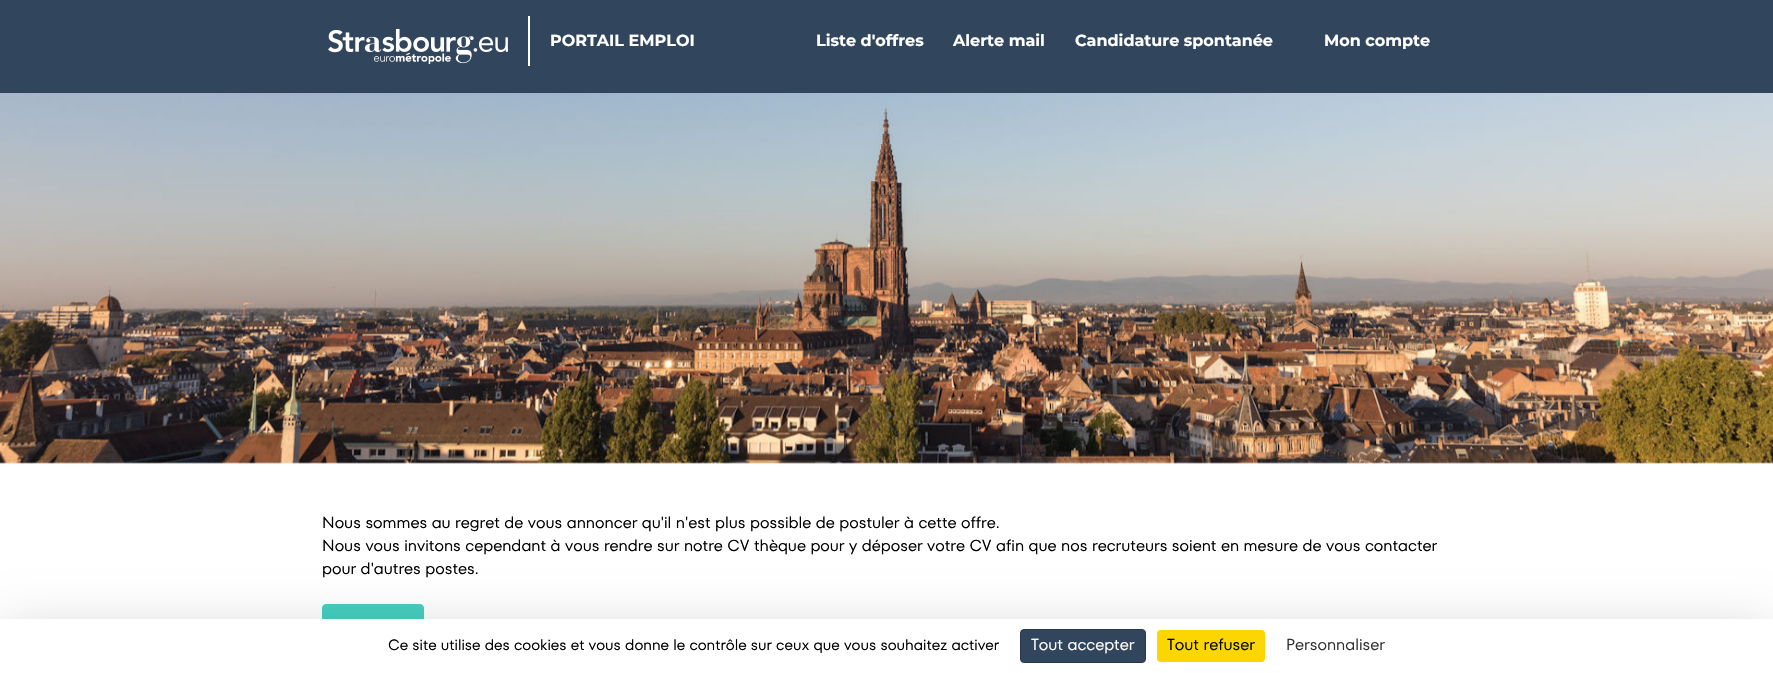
static SkFont makeFont(const char* family, int weight, float size, bool italic = false) {
  SkFontStyle style(weight, SkFontStyle::kNormal_Width,
    italic ? SkFontStyle::kItalic_Slant : SkFontStyle::kUpright_Slant);
  SkFont result(fontMgr->matchFamilyStyle(family, style), size);
  result.setSubpixel(true);
  return result;
}

static void text(SkCanvas* c, const char* s, float x, float y, const SkFont& font, SkColor color) {
  SkPaint ink(SkColor4f::FromColor(color));
  ink.setAntiAlias(true);
  c->drawString(s, x, y, font, ink);
}

static void box(SkCanvas* c, float l, float t, float r, float b, SkColor color) {
  SkPaint ink(SkColor4f::FromColor(color));
  ink.setAntiAlias(true);
  c->drawRect(SkRect::MakeLTRB(l, t, r, b), ink);
}

static void roundBox(SkCanvas* c, float l, float t, float r, float b, float radius, SkColor color) {
  SkPaint ink(SkColor4f::FromColor(color));
  ink.setAntiAlias(true);
  c->drawRoundRect(SkRect::MakeLTRB(l, t, r, b), radius, radius, ink);
}

static void picture(SkCanvas* c, const char* path, float l, float t, float r, float b) {
  auto image = SkImages::DeferredFromEncodedData(SkData::MakeFromFileName(path));
  c->drawImageRect(image, SkRect::MakeLTRB(l, t, r, b), SkSamplingOptions());
}

void draw(SkCanvas* c) {
  SkPaint paint;
  paint.setAntiAlias(true);
  c->clear(0xffffffff);
  box(c, 0, 0, 1773, 93, 0xff31455d);
  picture(c, "img_01.png", 328, 29, 508, 64);
  box(c, 528, 16, 530, 66, 0xffffffff);
  SkFont face1 = makeFont("Montserrat", 100, 16);
  text(c, "PORTAIL EMPLOI", 550, 46, face1, 0xffffffff);
  text(c, "Liste d'offres", 816, 46, face1, 0xffffffff);
  text(c, "Alerte mail", 953, 46, face1, 0xffffffff);
  text(c, "Candidature spontanée", 1075, 46, face1, 0xffffffff);
  text(c, "Mon compte", 1324, 46, face1, 0xffffffff);
  picture(c, "img_02.png", 0, 93, 1773, 464);
  SkFont face2 = makeFont("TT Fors", 400, 16);
  text(c, "Nous sommes au regret de vous annoncer qu'il n'est plus possible de postuler à cette offre.", 322, 528, face2, 0xff000000);
  text(c, "Nous vous invitons cependant à vous rendre sur notre CV thèque pour y déposer votre CV afin que nos recruteurs soient en mesure de vous contacter", 322, 551, face2, 0xff000000);
  text(c, "pour d'autres postes.", 322, 574, face2, 0xff000000);
  paint.setColor(0xff46cfc0);
  c->drawRoundRect(SkRect::MakeLTRB(322.5f, 604.5f, 423.5f, 640.5f), 3.5f, 3.5f, paint);
  paint.setStyle(SkPaint::kStroke_Style);
  paint.setStrokeWidth(1);
  c->drawRoundRect(SkRect::MakeLTRB(322.5f, 604.5f, 423.5f, 640.5f), 3.5f, 3.5f, paint);
  paint.setStyle(SkPaint::kFill_Style);
  paint.setColor(0x40000000);
  paint.setMaskFilter(SkMaskFilter::MakeBlur(kNormal_SkBlurStyle, 30));
  c->drawRect(SkRect::MakeLTRB(0, 639, 1773, 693), paint);
  paint.setMaskFilter(nullptr);
  box(c, 0, 619, 1773, 673, 0xffffffff);
  SkFont face3 = makeFont("TT Fors", 400, 15);
  text(c, "Ce site utilise des cookies et vous donne le contrôle sur ceux que vous souhaitez activer", 388, 650, face3, 0xff000000);
  paint.setColor(0xff31455d);
  c->drawRoundRect(SkRect::MakeLTRB(1020.5f, 629.5f, 1145.5f, 662.5f), 3.5f, 3.5f, paint);
  paint.setStyle(SkPaint::kStroke_Style);
  paint.setColor(0xff28394c);
  c->drawRoundRect(SkRect::MakeLTRB(1020.5f, 629.5f, 1145.5f, 662.5f), 3.5f, 3.5f, paint);
  text(c, "Tout accepter", 1031, 650, face2, 0xffffffff);
  roundBox(c, 1157, 630, 1265, 662, 4, 0xfffbd600);
  text(c, "Tout refuser", 1167, 650, face2, 0xff000000);
  text(c, "Personnaliser", 1286, 650, face2, 0xff333333);
}
